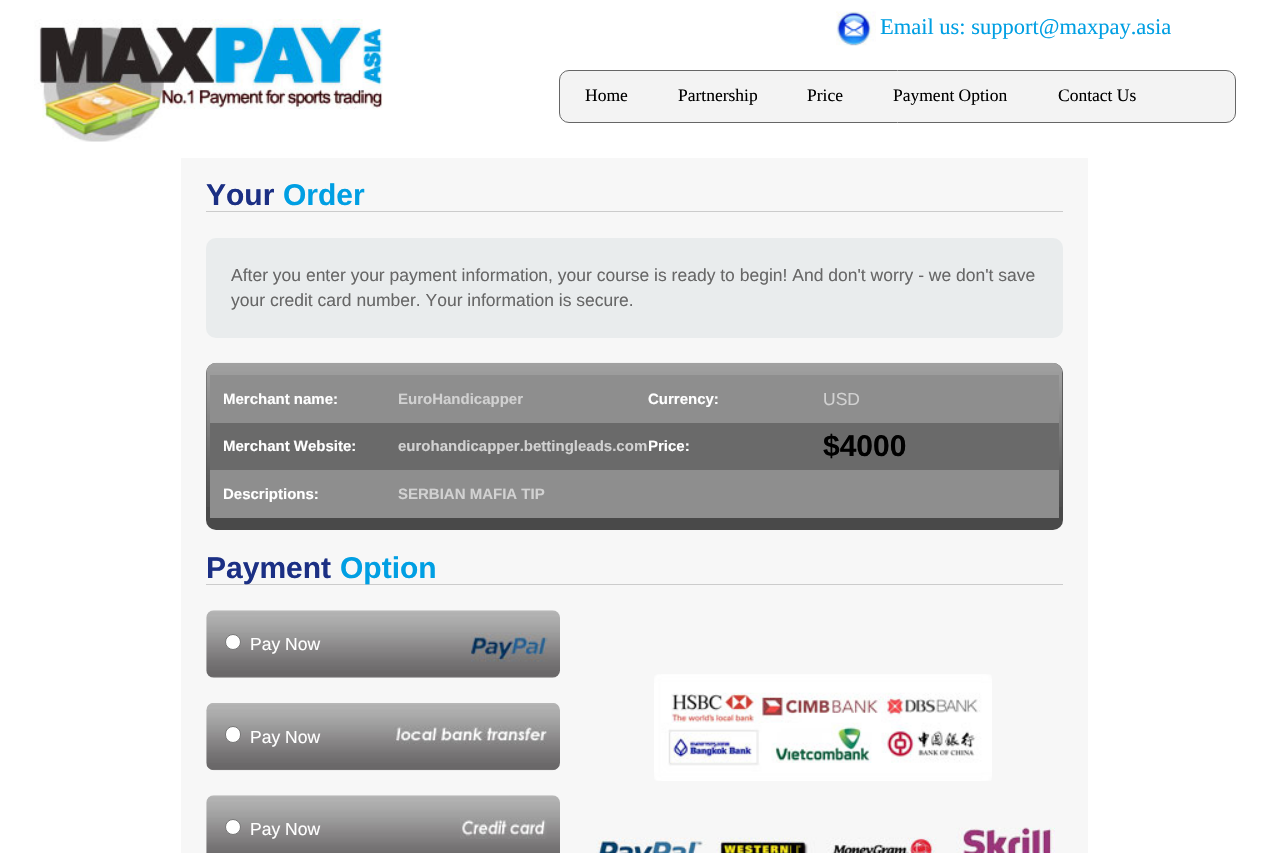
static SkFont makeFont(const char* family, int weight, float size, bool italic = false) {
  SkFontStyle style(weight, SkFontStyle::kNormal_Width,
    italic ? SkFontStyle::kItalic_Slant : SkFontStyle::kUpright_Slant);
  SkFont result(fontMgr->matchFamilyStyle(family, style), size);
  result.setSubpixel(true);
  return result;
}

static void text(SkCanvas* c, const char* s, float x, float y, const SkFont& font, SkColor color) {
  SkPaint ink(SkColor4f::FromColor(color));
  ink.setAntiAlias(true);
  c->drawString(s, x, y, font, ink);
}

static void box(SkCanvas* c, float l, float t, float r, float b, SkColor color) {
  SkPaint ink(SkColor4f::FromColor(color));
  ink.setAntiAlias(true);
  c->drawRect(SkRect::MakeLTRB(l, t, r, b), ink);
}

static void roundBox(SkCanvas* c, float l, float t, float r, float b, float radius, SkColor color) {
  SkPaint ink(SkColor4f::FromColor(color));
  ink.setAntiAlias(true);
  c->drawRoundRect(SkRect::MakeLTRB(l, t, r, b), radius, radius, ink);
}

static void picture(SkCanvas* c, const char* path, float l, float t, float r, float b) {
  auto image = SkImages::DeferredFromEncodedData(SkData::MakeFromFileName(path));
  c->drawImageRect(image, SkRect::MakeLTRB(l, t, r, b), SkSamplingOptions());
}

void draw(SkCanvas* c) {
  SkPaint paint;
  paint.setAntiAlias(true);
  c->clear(0xffffffff);
  picture(c, "img_01.png", 34, 19, 383, 142);
  picture(c, "img_02.png", 836, 11, 876, 46);
  SkFont face1 = makeFont("Liberation Serif", 400, 22.5f);
  text(c, "Email us: support@maxpay.asia", 880, 34, face1, 0xff009fe3);
  paint.setColor(0xfff3f3f3);
  c->drawRoundRect(SkRect::MakeLTRB(559.5f, 70.5f, 1235.5f, 122.5f), 9.5f, 9.5f, paint);
  paint.setStyle(SkPaint::kStroke_Style);
  paint.setStrokeWidth(1);
  paint.setColor(0xff666666);
  c->drawRoundRect(SkRect::MakeLTRB(559.5f, 70.5f, 1235.5f, 122.5f), 9.5f, 9.5f, paint);
  SkFont face2 = makeFont("Liberation Serif", 400, 17.5f);
  text(c, "Home", 585, 101, face2, 0xff000000);
  text(c, "Partnership", 678, 101, face2, 0xff000000);
  text(c, "Price", 807, 101, face2, 0xff000000);
  text(c, "Payment Option", 893, 101, face2, 0xff000000);
  text(c, "Contact Us", 1058, 101, face2, 0xff000000);
  box(c, 181, 158, 1088, 853, 0xfff7f7f7);
  box(c, 206, 211, 1063, 212, 0xffcccccc);
  SkFont face3 = makeFont("Liberation Sans", 700, 30);
  text(c, "Your", 206, 205, face3, 0xff1b2f84);
  text(c, "Order", 283, 205, face3, 0xff009fe3);
  roundBox(c, 206, 238, 1063, 338, 10, 0xffe9eced);
  SkFont face4 = makeFont("Liberation Sans", 400, 17.5f);
  text(c, "After you enter your payment information, your course is ready to begin! And don't worry - we don't save", 231, 281, face4, 0xff676767);
  text(c, "your credit card number. Your information is secure.", 231, 306, face4, 0xff676767);
  roundBox(c, 206, 363, 1063, 530, 10, 0xff494949);
  picture(c, "img_03.png", 206, 362, 1063, 507);
  box(c, 210, 375, 1059, 423, 0xff8e8e8e);
  SkFont face5 = makeFont("Liberation Sans", 700, 15);
  text(c, "Merchant name:", 223, 404, face5, 0xffffffff);
  text(c, "EuroHandicapper", 398, 404, face5, 0xffd1d1d1);
  text(c, "Currency:", 648, 404, face5, 0xffffffff);
  text(c, "USD", 823, 405, face4, 0xffd1d1d1);
  box(c, 210, 423, 1059, 470, 0xff6a6a6a);
  text(c, "Merchant Website:", 223, 451, face5, 0xffffffff);
  text(c, "eurohandicapper.bettingleads.com", 398, 451, face5, 0xffd1d1d1);
  text(c, "Price:", 648, 451, face5, 0xffffffff);
  text(c, "$4000", 823, 456, face3, 0xff000000);
  box(c, 210, 470, 1059, 518, 0xff8e8e8e);
  text(c, "Descriptions:", 223, 499, face5, 0xffffffff);
  text(c, "SERBIAN MAFIA TIP", 398, 499, face5, 0xffd1d1d1);
  box(c, 206, 584, 1063, 585, 0xffcccccc);
  text(c, "Payment", 206, 578, face3, 0xff1b2f84);
  text(c, "Option", 340, 578, face3, 0xff009fe3);
  picture(c, "img_04.png", 206, 610, 560, 678);
  paint.setStyle(SkPaint::kFill_Style);
  paint.setColor(0xffffffff);
  c->drawCircle(233, 642, 7.5f, paint);
  paint.setStyle(SkPaint::kStroke_Style);
  paint.setColor(0xff767676);
  c->drawCircle(233, 642, 7.5f, paint);
  text(c, "Pay Now", 250, 650, face4, 0xffffffff);
  picture(c, "img_05.png", 471, 632, 548, 662);
  picture(c, "img_06.png", 206, 703, 560, 771);
  paint.setStyle(SkPaint::kFill_Style);
  paint.setColor(0xffffffff);
  c->drawRoundRect(SkRect::MakeLTRB(225.5f, 726.5f, 240.5f, 742.5f), 7.5f, 7.5f, paint);
  paint.setStyle(SkPaint::kStroke_Style);
  paint.setColor(0xff767676);
  c->drawRoundRect(SkRect::MakeLTRB(225.5f, 726.5f, 240.5f, 742.5f), 7.5f, 7.5f, paint);
  text(c, "Pay Now", 250, 743, face4, 0xffffffff);
  picture(c, "img_07.png", 393, 725, 547, 744);
  picture(c, "img_08.png", 206, 795, 560, 853);
  paint.setStyle(SkPaint::kFill_Style);
  paint.setColor(0xffffffff);
  c->drawCircle(233, 827, 7.5f, paint);
  paint.setStyle(SkPaint::kStroke_Style);
  paint.setColor(0xff767676);
  c->drawCircle(233, 827, 7.5f, paint);
  text(c, "Pay Now", 250, 835, face4, 0xffffffff);
  picture(c, "img_09.png", 460, 818, 547, 839);
  picture(c, "img_10.png", 654, 674, 992, 781);
  picture(c, "img_11.png", 596, 827, 1055, 853);
}
